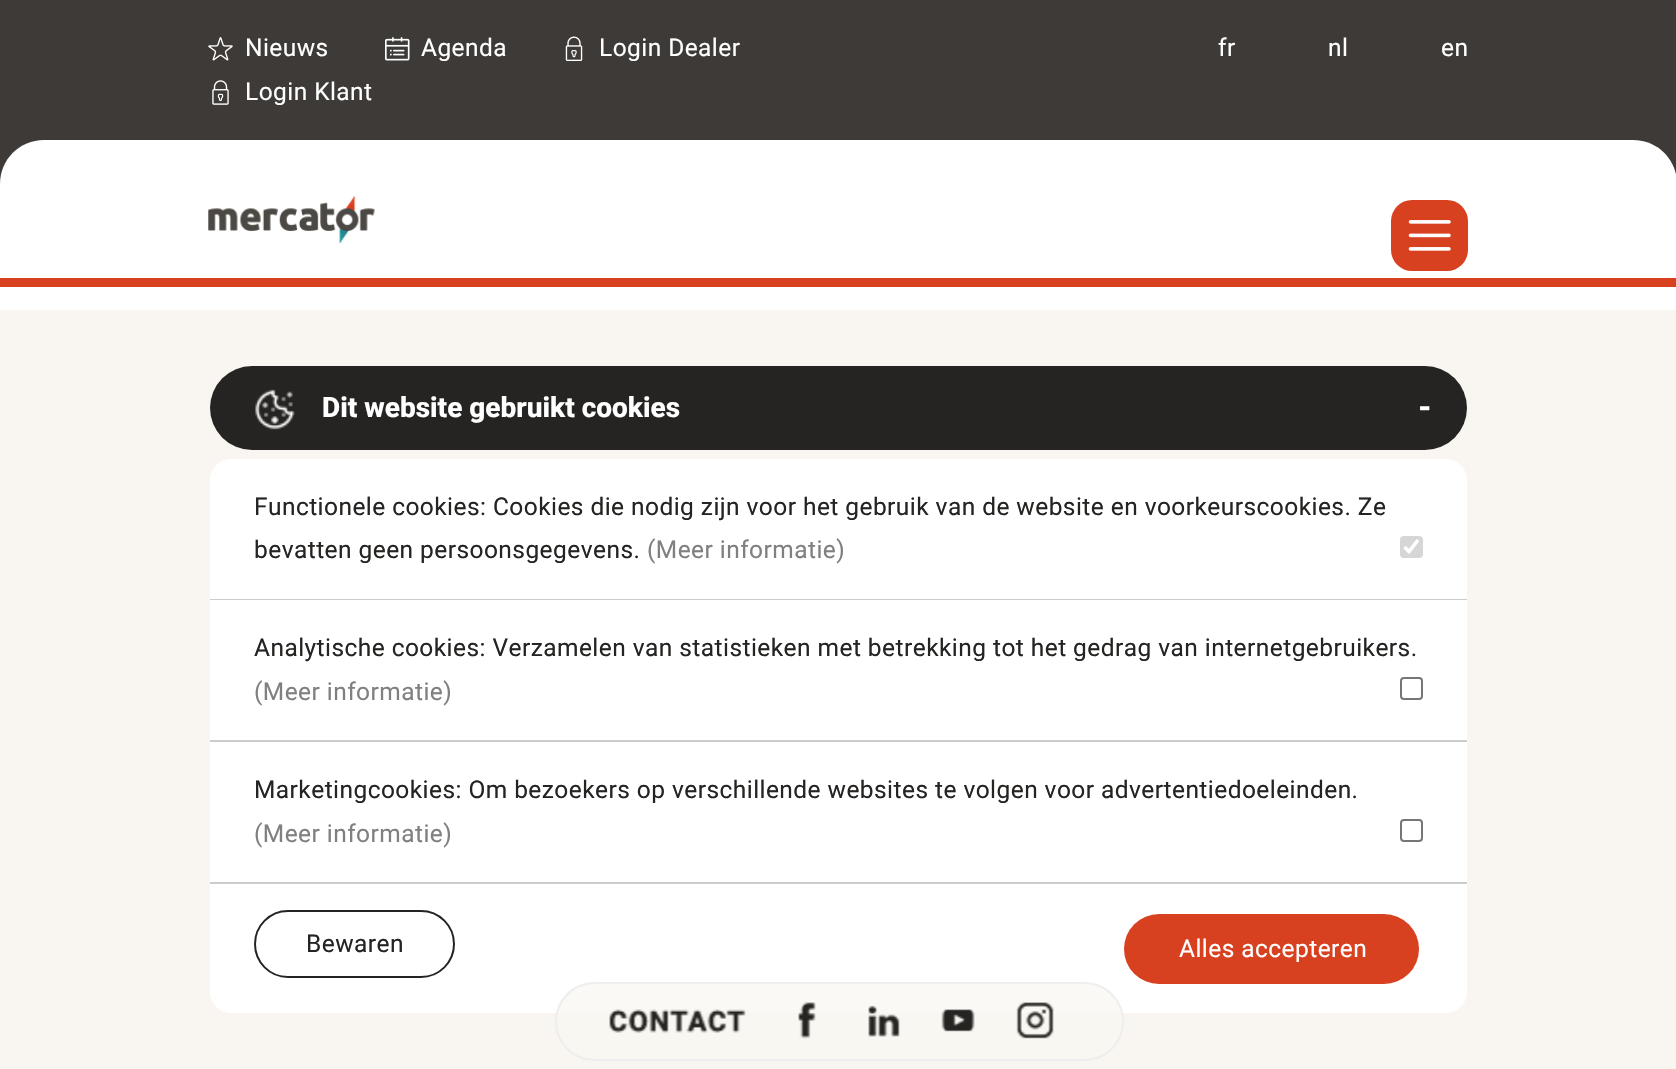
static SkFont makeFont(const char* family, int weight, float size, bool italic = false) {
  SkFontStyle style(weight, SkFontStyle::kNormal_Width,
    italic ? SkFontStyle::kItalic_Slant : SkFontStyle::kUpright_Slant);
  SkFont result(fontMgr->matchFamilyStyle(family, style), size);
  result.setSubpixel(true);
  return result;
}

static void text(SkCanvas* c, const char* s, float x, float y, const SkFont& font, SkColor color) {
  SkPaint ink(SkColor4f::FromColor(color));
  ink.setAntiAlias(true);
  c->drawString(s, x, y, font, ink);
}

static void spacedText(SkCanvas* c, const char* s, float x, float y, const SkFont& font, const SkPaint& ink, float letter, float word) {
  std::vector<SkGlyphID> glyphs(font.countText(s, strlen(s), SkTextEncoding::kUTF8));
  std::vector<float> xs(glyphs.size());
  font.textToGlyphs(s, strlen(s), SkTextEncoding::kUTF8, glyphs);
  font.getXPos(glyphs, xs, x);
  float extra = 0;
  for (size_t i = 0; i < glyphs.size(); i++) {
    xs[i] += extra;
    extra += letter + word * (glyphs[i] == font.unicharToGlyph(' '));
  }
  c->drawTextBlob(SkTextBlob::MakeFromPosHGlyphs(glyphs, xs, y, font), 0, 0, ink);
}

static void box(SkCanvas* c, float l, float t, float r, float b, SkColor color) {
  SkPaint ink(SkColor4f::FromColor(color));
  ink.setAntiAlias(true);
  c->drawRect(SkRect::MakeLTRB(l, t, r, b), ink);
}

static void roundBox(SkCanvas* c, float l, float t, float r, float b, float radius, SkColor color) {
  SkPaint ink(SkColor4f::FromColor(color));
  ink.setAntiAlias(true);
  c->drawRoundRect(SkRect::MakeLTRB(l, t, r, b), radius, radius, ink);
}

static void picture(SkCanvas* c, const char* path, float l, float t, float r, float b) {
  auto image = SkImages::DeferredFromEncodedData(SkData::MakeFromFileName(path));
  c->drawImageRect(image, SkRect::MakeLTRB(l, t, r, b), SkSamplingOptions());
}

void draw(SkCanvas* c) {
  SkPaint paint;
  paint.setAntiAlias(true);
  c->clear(0xffffffff);
  box(c, 0, 0, 1676, 184, 0xff3d3a37);
  picture(c, "img_01.png", 208, 37, 233, 61);
  SkFont face1 = makeFont("Roboto", 400, 24.5f);
  paint.setColor(0xffffffff);
  spacedText(c, "Nieuws", 245, 56, face1, paint, 0.44f, 0);
  picture(c, "img_02.png", 385, 37, 410, 61);
  spacedText(c, "Agenda", 421, 56, face1, paint, 0.44f, 0);
  picture(c, "img_03.png", 565, 36, 583, 61);
  spacedText(c, "Login Dealer", 599, 56, face1, paint, 0.44f, 0);
  picture(c, "img_04.png", 212, 80, 229, 105);
  spacedText(c, "Login Klant", 245, 100, face1, paint, 0.44f, 0);
  spacedText(c, "fr", 1218, 56, face1, paint, 0.44f, 0);
  spacedText(c, "nl", 1328, 56, face1, paint, 0.44f, 0);
  spacedText(c, "en", 1441, 56, face1, paint, 0.44f, 0);
  c->drawPath(SkPathBuilder().moveTo(44, 140).lineTo(1633, 140).cubicTo(1657.5f, 140, 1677, 159.5f, 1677, 184).lineTo(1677, 278).lineTo(0, 278).lineTo(0, 184).cubicTo(0, 159.5f, 19.5f, 140, 44, 140).close().detach(), paint);
  picture(c, "img_05.png", 208, 196, 375, 244);
  roundBox(c, 1391, 200, 1468, 271, 21, 0xffd74120);
  picture(c, "img_06.png", 1408, 220, 1451, 251);
  box(c, 0, 278, 1676, 287, 0xffd74120);
  box(c, 0, 310, 1676, 1069, 0xfff9f6f1);
  roundBox(c, 210, 366, 1467, 450, 42, 0xff262422);
  picture(c, "img_07.png", 255, 389, 295, 430);
  SkFont face2 = makeFont("Roboto", 800, 28);
  text(c, "Dit website gebruikt cookies", 322, 417, face2, 0xffffffff);
  SkFont face3 = makeFont("Roboto", 800, 32);
  text(c, "-", 1418, 418, face3, 0xffffffff);
  c->drawPath(SkPathBuilder().moveTo(231, 459).lineTo(1446, 459).cubicTo(1457.5f, 459, 1467, 468.5f, 1467, 480).lineTo(1467, 600).lineTo(210, 600).lineTo(210, 480).cubicTo(210, 468.5f, 219.5f, 459, 231, 459).close().detach(), paint);
  box(c, 210, 599, 1467, 600, 0xffcccccc);
  paint.setColor(0xff262422);
  spacedText(c, "Functionele cookies: Cookies die nodig zijn voor het gebruik van de website en voorkeurscookies. Ze", 254, 515, face1, paint, 0.44f, 0);
  spacedText(c, "bevatten geen persoonsgegevens.", 254, 558, face1, paint, 0.44f, 0);
  paint.setColor(0xff808080);
  spacedText(c, "(Meer informatie)", 647, 558, face1, paint, 0.44f, 0);
  roundBox(c, 1400, 536, 1423, 558, 4, 0xffd6d6d6);
  paint.setStyle(SkPaint::kStroke_Style);
  paint.setStrokeWidth(3.6f);
  paint.setColor(0xffffffff);
  c->drawPath(SkPathBuilder().moveTo(1404.5f, 547).lineTo(1409, 551.5f).lineTo(1418, 540).detach(), paint);
  box(c, 210, 600, 1467, 740, 0xffffffff);
  box(c, 210, 740, 1467, 742, 0xffcccccc);
  paint.setStyle(SkPaint::kFill_Style);
  paint.setColor(0xff262422);
  spacedText(c, "Analytische cookies: Verzamelen van statistieken met betrekking tot het gedrag van internetgebruikers.", 254, 656, face1, paint, 0.44f, 0);
  paint.setColor(0xff808080);
  spacedText(c, "(Meer informatie)", 254, 700, face1, paint, 0.44f, 0);
  paint.setStyle(SkPaint::kStroke_Style);
  paint.setStrokeWidth(2);
  paint.setColor(0xff767676);
  c->drawRoundRect(SkRect::MakeLTRB(1401, 678, 1422, 699), 3, 3, paint);
  box(c, 210, 742, 1467, 882, 0xffffffff);
  box(c, 210, 882, 1467, 884, 0xffcccccc);
  paint.setStyle(SkPaint::kFill_Style);
  paint.setColor(0xff262422);
  spacedText(c, "Marketingcookies: Om bezoekers op verschillende websites te volgen voor advertentiedoeleinden.", 254, 798, face1, paint, 0.44f, 0);
  paint.setColor(0xff808080);
  spacedText(c, "(Meer informatie)", 254, 842, face1, paint, 0.44f, 0);
  paint.setStyle(SkPaint::kStroke_Style);
  paint.setColor(0xff767676);
  c->drawRoundRect(SkRect::MakeLTRB(1401, 820, 1422, 841), 3, 3, paint);
  paint.setStyle(SkPaint::kFill_Style);
  paint.setColor(0xffffffff);
  c->drawPath(SkPathBuilder().moveTo(210, 884).lineTo(1467, 884).lineTo(1467, 992).cubicTo(1467, 1003.5f, 1457.5f, 1013, 1446, 1013).lineTo(231, 1013).cubicTo(219.5f, 1013, 210, 1003.5f, 210, 992).close().detach(), paint);
  paint.setStyle(SkPaint::kStroke_Style);
  paint.setColor(0xff262422);
  c->drawRoundRect(SkRect::MakeLTRB(255, 911, 454, 977), 33, 33, paint);
  paint.setStyle(SkPaint::kFill_Style);
  spacedText(c, "Bewaren", 306, 952, face1, paint, 0.44f, 0);
  roundBox(c, 1124, 914, 1419, 984, 35, 0xffd74120);
  paint.setColor(0xffffffff);
  spacedText(c, "Alles accepteren", 1179, 957, face1, paint, 0.44f, 0);
  paint.setColor(0xb3f9f6f1);
  c->drawRoundRect(SkRect::MakeLTRB(556, 983, 1123, 1060), 38.5f, 38.5f, paint);
  paint.setStyle(SkPaint::kStroke_Style);
  paint.setColor(0xffeeeeee);
  c->drawRoundRect(SkRect::MakeLTRB(556, 983, 1123, 1060), 38.5f, 38.5f, paint);
  picture(c, "img_08.png", 609, 1009, 746, 1033);
  picture(c, "img_09.png", 798, 1002, 816, 1039);
  picture(c, "img_10.png", 868, 1005, 900, 1037);
  picture(c, "img_11.png", 941, 1009, 975, 1032);
  picture(c, "img_12.png", 1016, 1002, 1054, 1039);
}
